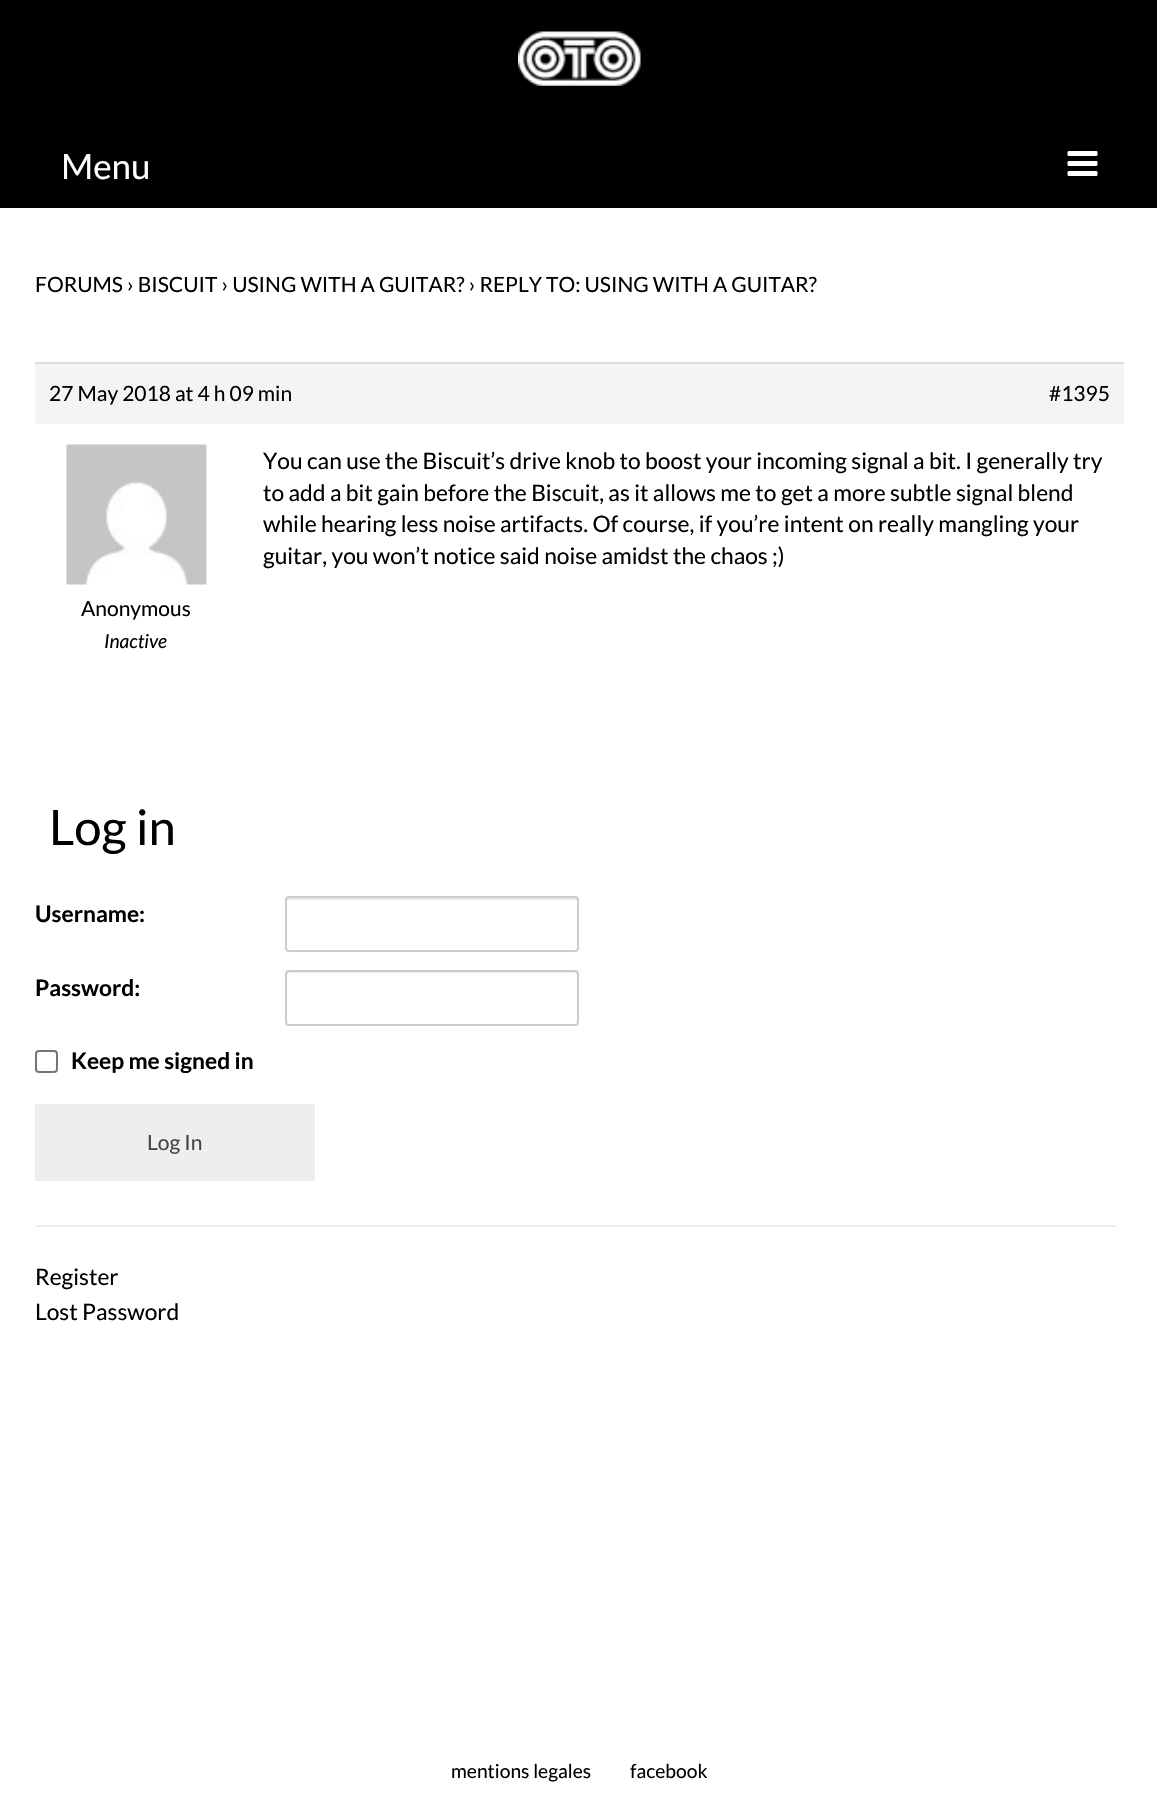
static SkFont makeFont(const char* family, int weight, float size, bool italic = false) {
  SkFontStyle style(weight, SkFontStyle::kNormal_Width,
    italic ? SkFontStyle::kItalic_Slant : SkFontStyle::kUpright_Slant);
  SkFont result(fontMgr->matchFamilyStyle(family, style), size);
  result.setSubpixel(true);
  return result;
}

static void text(SkCanvas* c, const char* s, float x, float y, const SkFont& font, SkColor color) {
  SkPaint ink(SkColor4f::FromColor(color));
  ink.setAntiAlias(true);
  c->drawString(s, x, y, font, ink);
}

static void box(SkCanvas* c, float l, float t, float r, float b, SkColor color) {
  SkPaint ink(SkColor4f::FromColor(color));
  ink.setAntiAlias(true);
  c->drawRect(SkRect::MakeLTRB(l, t, r, b), ink);
}

static void picture(SkCanvas* c, const char* path, float l, float t, float r, float b) {
  auto image = SkImages::DeferredFromEncodedData(SkData::MakeFromFileName(path));
  c->drawImageRect(image, SkRect::MakeLTRB(l, t, r, b), SkSamplingOptions());
}

void draw(SkCanvas* c) {
  SkPaint paint;
  paint.setAntiAlias(true);
  c->clear(0xffffffff);
  box(c, 0, 0, 1157, 208, 0xff000000);
  picture(c, "img_01.png", 518, 31, 641, 86);
  SkFont face1 = makeFont("Lato", 400, 35);
  text(c, "Menu", 61, 179, face1, 0xffffffff);
  picture(c, "img_02.png", 1067, 151, 1098, 176);
  SkFont face2 = makeFont("Lato", 400, 21);
  text(c, "FORUMS › BISCUIT › USING WITH A GUITAR? › REPLY TO: USING WITH A GUITAR?", 35, 292, face2, 0xff000000);
  box(c, 35, 364, 1124, 424, 0xfff4f4f4);
  box(c, 35, 362, 1124, 364, 0xffdddddd);
  text(c, "27 May 2018 at 4 h 09 min", 49, 401, face2, 0xff000000);
  text(c, "#1395", 1049, 401, face2, 0xff000000);
  SkFont face3 = makeFont("Lato", 400, 22.75f);
  text(c, "You can use the Biscuit’s drive knob to boost your incoming signal a bit. I generally try", 263, 469, face3, 0xff000000);
  text(c, "to add a bit gain before the Biscuit, as it allows me to get a more subtle signal blend", 263, 501, face3, 0xff000000);
  text(c, "while hearing less noise artifacts. Of course, if you’re intent on really mangling your", 263, 532, face3, 0xff000000);
  text(c, "guitar, you won’t notice said noise amidst the chaos ;)", 263, 564, face3, 0xff000000);
  picture(c, "img_03.png", 66, 444, 207, 585);
  text(c, "Anonymous", 81, 616, face2, 0xff000000);
  SkFont face4 = makeFont("Lato", 400, 19.25f, true);
  text(c, "Inactive", 104, 648, face4, 0xff000000);
  SkFont face5 = makeFont("Lato", 400, 49);
  text(c, "Log in", 49, 845, face5, 0xff000000);
  SkFont face6 = makeFont("Lato", 700, 22.75f);
  text(c, "Username:", 35, 922, face6, 0xff000000);
  paint.setColor(0xffececec);
  c->drawPath(SkPathBuilder().moveTo(289, 900).lineTo(576, 900).cubicTo(577, 900, 578, 900, 578, 901).cubicTo(578, 900, 578, 898, 576, 898).lineTo(288, 898).lineTo(287, 901).cubicTo(287, 900, 288, 900, 289, 900).close().detach(), paint);
  paint.setStyle(SkPaint::kStroke_Style);
  paint.setStrokeWidth(2);
  paint.setColor(0xffcccccc);
  c->drawRoundRect(SkRect::MakeLTRB(286, 897, 578, 951), 3, 3, paint);
  text(c, "Password:", 35, 996, face6, 0xff000000);
  paint.setStyle(SkPaint::kFill_Style);
  paint.setColor(0xffececec);
  c->drawPath(SkPathBuilder().moveTo(289, 973).lineTo(576, 973).cubicTo(577, 973, 578, 974, 578, 975).cubicTo(578, 973, 578, 971, 576, 971).lineTo(288, 971).cubicTo(287, 972, 287, 974, 287, 975).cubicTo(287, 974, 288, 973, 289, 973).close().detach(), paint);
  paint.setStyle(SkPaint::kStroke_Style);
  paint.setColor(0xffcccccc);
  c->drawRoundRect(SkRect::MakeLTRB(286, 971, 578, 1025), 3, 3, paint);
  paint.setColor(0xff767676);
  c->drawRoundRect(SkRect::MakeLTRB(36, 1051, 57, 1072), 3, 3, paint);
  text(c, "Keep me signed in", 71, 1069, face6, 0xff000000);
  box(c, 35, 1104, 315, 1181, 0xffeeeeee);
  text(c, "Log In", 147, 1150, face2, 0xff444444);
  box(c, 35, 1225, 1117, 1227, 0xffeeeeee);
  text(c, "Register", 35, 1285, face3, 0xff000000);
  text(c, "Lost Password", 35, 1320, face3, 0xff000000);
  SkFont face7 = makeFont("Lato", 400, 19.25f);
  text(c, "mentions legales", 451, 1778, face7, 0xff000000);
  text(c, "facebook", 630, 1778, face7, 0xff000000);
}
